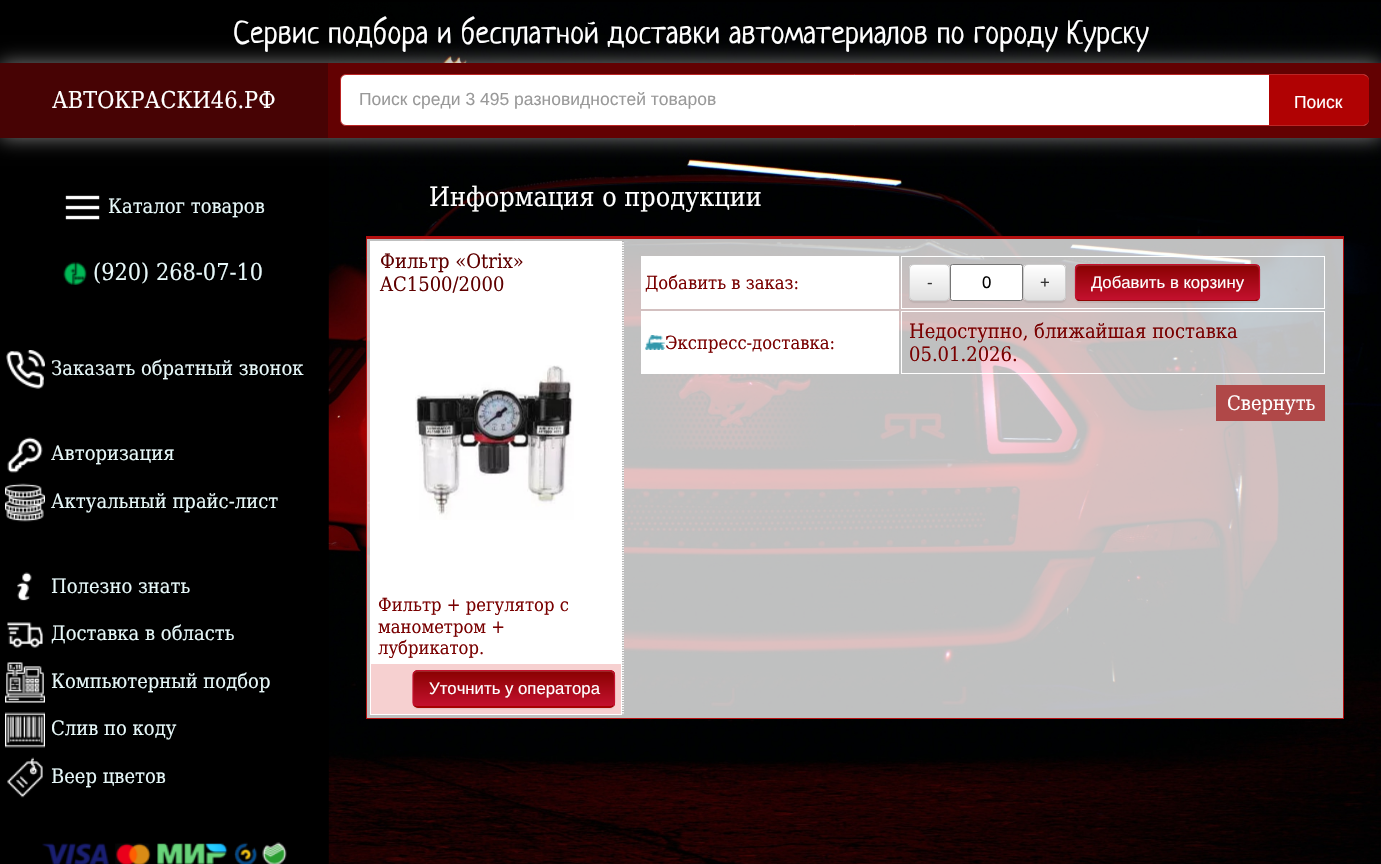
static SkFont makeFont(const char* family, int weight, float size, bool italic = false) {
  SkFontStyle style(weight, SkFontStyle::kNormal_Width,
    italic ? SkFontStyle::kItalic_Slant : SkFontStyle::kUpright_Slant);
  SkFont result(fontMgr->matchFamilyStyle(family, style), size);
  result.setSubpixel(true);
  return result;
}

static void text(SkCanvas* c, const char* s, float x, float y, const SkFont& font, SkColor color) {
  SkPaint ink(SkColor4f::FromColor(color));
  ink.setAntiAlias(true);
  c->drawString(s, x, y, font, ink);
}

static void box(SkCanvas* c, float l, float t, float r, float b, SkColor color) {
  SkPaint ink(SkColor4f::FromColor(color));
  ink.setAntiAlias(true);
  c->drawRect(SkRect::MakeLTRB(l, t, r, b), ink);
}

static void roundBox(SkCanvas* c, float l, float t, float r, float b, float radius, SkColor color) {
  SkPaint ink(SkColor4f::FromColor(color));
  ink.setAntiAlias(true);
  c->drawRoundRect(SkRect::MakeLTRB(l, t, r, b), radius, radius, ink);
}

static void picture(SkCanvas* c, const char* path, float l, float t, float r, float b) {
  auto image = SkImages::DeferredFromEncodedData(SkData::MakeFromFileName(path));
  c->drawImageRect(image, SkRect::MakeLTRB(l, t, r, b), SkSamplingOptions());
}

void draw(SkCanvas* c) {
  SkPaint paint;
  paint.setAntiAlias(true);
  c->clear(0xff000000);
  picture(c, "img_16.png", 328, 2, 1381, 864);
  SkFont face1 = makeFont("Neucha", 400, 31.7f);
  text(c, "Сервис подбора и бесплатной доставки автоматериалов по городу Курску", 233, 43, face1, 0xffffffff);
  paint.setColor(0x80ffffff);
  paint.setMaskFilter(SkMaskFilter::MakeBlur(kNormal_SkBlurStyle, 9.5f));
  c->drawRect(SkRect::MakeLTRB(0, 63, 1381, 138), paint);
  paint.setMaskFilter(nullptr);
  box(c, 328, 63, 1381, 138, 0xff630102);
  box(c, 0, 63, 328, 138, 0xff470304);
  SkFont face2 = makeFont("DejaVu Serif", 400, 23.25f);
  text(c, "АВТОКРАСКИ46.РФ", 52, 108, face2, 0xffffffff);
  paint.setColor(0xffffffff);
  c->drawRoundRect(SkRect::MakeLTRB(340.5f, 74.5f, 1368.5f, 125.5f), 5.5f, 5.5f, paint);
  paint.setStyle(SkPaint::kStroke_Style);
  paint.setStrokeWidth(1);
  paint.setColor(0xffbc2525);
  c->drawRoundRect(SkRect::MakeLTRB(340.5f, 74.5f, 1368.5f, 125.5f), 5.5f, 5.5f, paint);
  SkFont face3 = makeFont("Liberation Sans", 400, 17.5f);
  text(c, "Поиск среди 3 495 разновидностей товаров", 359, 105, face3, 0xff999999);
  paint.setStyle(SkPaint::kFill_Style);
  paint.setColor(0xffb00203);
  c->drawPath(SkPathBuilder().moveTo(1269, 75).lineTo(1363, 75).cubicTo(1366.5f, 75, 1369, 77.5f, 1369, 81).lineTo(1369, 119).cubicTo(1369, 122.5f, 1366.5f, 125, 1363, 125).lineTo(1269, 125).close().detach(), paint);
  text(c, "Поиск", 1294, 108, face3, 0xffffffff);
  picture(c, "img_01.png", 65, 195, 100, 220);
  SkFont face4 = makeFont("DejaVu Serif", 400, 20);
  text(c, "Каталог товаров", 108, 213, face4, 0xffe7f8f9);
  picture(c, "img_02.png", 63, 262, 87, 285);
  text(c, "(920) 268-07-10", 93, 280, face2, 0xffe7f8f9);
  picture(c, "img_03.png", 6, 350, 45, 389);
  text(c, "Заказать обратный звонок", 51, 375, face4, 0xffe7f8f9);
  picture(c, "img_04.png", 7, 437, 43, 473);
  text(c, "Авторизация", 51, 460, face4, 0xffe7f8f9);
  picture(c, "img_05.png", 5, 483, 45, 522);
  text(c, "Актуальный прайс-лист", 51, 508, face4, 0xffe7f8f9);
  picture(c, "img_06.png", 17, 572, 32, 601);
  text(c, "Полезно знать", 51, 593, face4, 0xffe7f8f9);
  picture(c, "img_07.png", 7, 622, 43, 648);
  text(c, "Доставка в область", 51, 640, face4, 0xffe7f8f9);
  picture(c, "img_08.png", 5, 662, 45, 703);
  text(c, "Компьютерный подбор", 51, 688, face4, 0xffe7f8f9);
  picture(c, "img_09.png", 5, 712, 45, 748);
  text(c, "Слив по коду", 51, 735, face4, 0xffe7f8f9);
  picture(c, "img_10.png", 7, 757, 43, 798);
  text(c, "Веер цветов", 51, 783, face4, 0xffe7f8f9);
  picture(c, "img_11.png", 42, 843, 109, 864);
  picture(c, "img_12.png", 115, 843, 151, 864);
  picture(c, "img_13.png", 157, 843, 228, 864);
  picture(c, "img_14.png", 234, 842, 258, 864);
  picture(c, "img_15.png", 262, 842, 287, 864);
  SkFont face5 = makeFont("DejaVu Serif", 400, 26.75f);
  text(c, "Информация о продукции", 429, 206, face5, 0xffffffff);
  box(c, 367, 239, 1343, 718, 0xbfffffff);
  box(c, 366, 236, 1344, 239, 0xffb51010);
  box(c, 1343, 236, 1344, 719, 0xffb51010);
  box(c, 366, 718, 1344, 719, 0xffb51010);
  box(c, 366, 236, 367, 719, 0xffb51010);
  box(c, 370, 241, 624, 715, 0xffffffff);
  paint.setStyle(SkPaint::kStroke_Style);
  paint.setStrokeWidth(1.2f);
  paint.setColor(0xff808080);
  paint.setPathEffect(SkDashPathEffect::Make({{1.25f, 1.25f}}, 0));
  c->drawPath(SkPathBuilder().moveTo(623, 241).lineTo(623, 715).detach(), paint);
  paint.setPathEffect(nullptr);
  text(c, "Фильтр «Otrix»", 380, 268, face4, 0xff5f0000);
  text(c, "AC1500/2000", 380, 291, face4, 0xff5f0000);
  picture(c, "img_17.png", 415, 365, 574, 520);
  SkFont face6 = makeFont("DejaVu Serif", 400, 18.25f);
  text(c, "Фильтр + регулятор с", 378, 611, face6, 0xff790000);
  text(c, "манометром +", 378, 633, face6, 0xff790000);
  text(c, "лубрикатор.", 378, 654, face6, 0xff790000);
  box(c, 371, 664, 621, 714, 0xfff6d0d0);
  paint.setStyle(SkPaint::kFill_Style);
  paint.setColor(0x12000000);
  paint.setMaskFilter(SkMaskFilter::MakeBlur(kNormal_SkBlurStyle, 0.5f));
  c->drawRoundRect(SkRect::MakeLTRB(413, 671, 615, 709), 5, 5, paint);
  paint.setMaskFilter(nullptr);
  roundBox(c, 413, 670, 615, 708, 5, 0xffbc0203);
  c->save();
  c->clipPath(SkPathBuilder().moveTo(418, 670).lineTo(610, 670).cubicTo(613, 670, 615, 672, 615, 675).lineTo(615, 703).cubicTo(615, 706, 613, 708, 610, 708).lineTo(418, 708).cubicTo(415, 708, 413, 706, 413, 703).lineTo(413, 675).cubicTo(413, 672, 415, 670, 418, 670).close().detach(), true);
  {
    const SkColor colors[] = {0xff890101, 0xffc4112e};
    const float stops[] = {0, 1};
    const SkPoint ends[] = {{514, 671}, {514, 706}};
    paint.setShader(SkGradientShader::MakeLinear(ends, colors, stops, 2, SkTileMode::kClamp));
    paint.setAlpha(255);
  }
  c->drawRect(SkRect::MakeLTRB(413, 671, 615, 706), paint);
  c->restore();
  paint.setShader(nullptr);
  paint.setColor(0x26ffffff);
  c->drawPath(SkPathBuilder().moveTo(418, 672).lineTo(610, 672).cubicTo(612, 672, 614, 674, 614, 676).lineTo(614, 675).cubicTo(614, 673, 612, 671, 610, 671).lineTo(418, 671).cubicTo(416, 671, 414, 673, 414, 675).lineTo(414, 676).cubicTo(414, 674, 415, 672, 418, 672).close().detach(), paint);
  paint.setStyle(SkPaint::kStroke_Style);
  paint.setColor(0xff910101);
  c->drawPath(SkPathBuilder().moveTo(613, 705.5f).cubicTo(612.5f, 706.5f, 611, 707, 610, 707).lineTo(417.5f, 707).cubicTo(416.5f, 707, 415, 706.5f, 414.5f, 705.5f).detach(), paint);
  paint.setColor(0xffc4112e);
  c->drawPath(SkPathBuilder().moveTo(414.5f, 705.5f).cubicTo(413.5f, 705, 413, 703.5f, 413, 702.5f).lineTo(413, 675).cubicTo(413, 674, 413.5f, 672.5f, 414.5f, 672).cubicTo(415, 671, 416.5f, 670.5f, 417.5f, 670.5f).lineTo(610, 670.5f).cubicTo(611, 670.5f, 612.5f, 671, 613, 672).cubicTo(614, 672.5f, 614.5f, 674, 614.5f, 675).lineTo(614.5f, 702.5f).cubicTo(614.5f, 703.5f, 614, 705, 613, 705.5f).detach(), paint);
  SkFont face7 = makeFont("Liberation Sans", 400, 16.75f);
  text(c, "Уточнить у оператора", 429, 694, face7, 0xffffffff);
  box(c, 641, 256, 899, 309, 0xffffffff);
  text(c, "Добавить в заказ:", 645, 289, face6, 0xff790000);
  paint.setStrokeWidth(1);
  paint.setColor(0xffffffff);
  c->drawRect(SkRect::MakeLTRB(901.5f, 256.5f, 1324.5f, 308.5f), paint);
  paint.setStyle(SkPaint::kFill_Style);
  paint.setColor(0x12000000);
  paint.setMaskFilter(SkMaskFilter::MakeBlur(kNormal_SkBlurStyle, 0.5f));
  c->drawRoundRect(SkRect::MakeLTRB(909, 265, 950, 303), 5, 5, paint);
  paint.setMaskFilter(nullptr);
  c->save();
  c->clipPath(SkPathBuilder().moveTo(914, 264).lineTo(945, 264).cubicTo(948, 264, 950, 266, 950, 269).lineTo(950, 296).cubicTo(950, 299, 948, 301, 945, 301).lineTo(914, 301).cubicTo(911, 301, 909, 299, 909, 296).lineTo(909, 269).cubicTo(909, 266, 911, 264, 914, 264).close().detach(), true);
  {
    const SkColor colors[] = {0xffffffff, 0xffe0e0e0};
    const float stops[] = {0, 1};
    const SkPoint ends[] = {{929, 265}, {929, 300}};
    paint.setShader(SkGradientShader::MakeLinear(ends, colors, stops, 2, SkTileMode::kClamp));
    paint.setAlpha(255);
  }
  c->drawRect(SkRect::MakeLTRB(909, 265, 950, 300), paint);
  c->restore();
  paint.setStyle(SkPaint::kStroke_Style);
  paint.setShader(nullptr);
  paint.setColor(0xffcccccc);
  c->drawRoundRect(SkRect::MakeLTRB(909.5f, 264.5f, 949.5f, 300.5f), 4.5f, 4.5f, paint);
  text(c, "-", 927, 288, face7, 0xff333333);
  paint.setStyle(SkPaint::kFill_Style);
  paint.setColor(0xffffffff);
  c->drawRoundRect(SkRect::MakeLTRB(950.5f, 264.5f, 1022.5f, 300.5f), 2, 2, paint);
  paint.setStyle(SkPaint::kStroke_Style);
  paint.setColor(0xff767676);
  c->drawRoundRect(SkRect::MakeLTRB(950.5f, 264.5f, 1022.5f, 300.5f), 2, 2, paint);
  text(c, "0", 982, 288, face7, 0xff000000);
  paint.setStyle(SkPaint::kFill_Style);
  paint.setColor(0x12000000);
  paint.setMaskFilter(SkMaskFilter::MakeBlur(kNormal_SkBlurStyle, 0.5f));
  c->drawRoundRect(SkRect::MakeLTRB(1023, 265, 1066, 303), 5, 5, paint);
  paint.setMaskFilter(nullptr);
  c->save();
  c->clipPath(SkPathBuilder().moveTo(1028, 264).lineTo(1061, 264).cubicTo(1064, 264, 1066, 266, 1066, 269).lineTo(1066, 296).cubicTo(1066, 299, 1064, 301, 1061, 301).lineTo(1028, 301).cubicTo(1025, 301, 1023, 299, 1023, 296).lineTo(1023, 269).cubicTo(1023, 266, 1025, 264, 1028, 264).close().detach(), true);
  {
    const SkColor colors[] = {0xffffffff, 0xffe0e0e0};
    const float stops[] = {0, 1};
    const SkPoint ends[] = {{1044, 265}, {1044, 300}};
    paint.setShader(SkGradientShader::MakeLinear(ends, colors, stops, 2, SkTileMode::kClamp));
    paint.setAlpha(255);
  }
  c->drawRect(SkRect::MakeLTRB(1023, 265, 1066, 300), paint);
  c->restore();
  paint.setStyle(SkPaint::kStroke_Style);
  paint.setShader(nullptr);
  paint.setColor(0xffcccccc);
  c->drawRoundRect(SkRect::MakeLTRB(1023.5f, 264.5f, 1065.5f, 300.5f), 4.5f, 4.5f, paint);
  text(c, "+", 1040, 288, face7, 0xff333333);
  paint.setStyle(SkPaint::kFill_Style);
  paint.setColor(0x12000000);
  paint.setMaskFilter(SkMaskFilter::MakeBlur(kNormal_SkBlurStyle, 0.5f));
  c->drawRoundRect(SkRect::MakeLTRB(1075, 265, 1260, 303), 5, 5, paint);
  paint.setMaskFilter(nullptr);
  c->save();
  c->clipPath(SkPathBuilder().moveTo(1080, 264).lineTo(1255, 264).cubicTo(1258, 264, 1260, 266, 1260, 269).lineTo(1260, 296).cubicTo(1260, 299, 1258, 301, 1255, 301).lineTo(1080, 301).cubicTo(1077, 301, 1075, 299, 1075, 296).lineTo(1075, 269).cubicTo(1075, 266, 1077, 264, 1080, 264).close().detach(), true);
  {
    const SkColor colors[] = {0xff890101, 0xffc4112e};
    const float stops[] = {0, 1};
    const SkPoint ends[] = {{1168, 265}, {1168, 300}};
    paint.setShader(SkGradientShader::MakeLinear(ends, colors, stops, 2, SkTileMode::kClamp));
    paint.setAlpha(255);
  }
  c->drawRect(SkRect::MakeLTRB(1075, 265, 1260, 300), paint);
  c->restore();
  paint.setShader(nullptr);
  paint.setColor(0x26ffffff);
  c->drawPath(SkPathBuilder().moveTo(1080, 266).lineTo(1255, 266).cubicTo(1257, 266, 1259, 268, 1259, 270).lineTo(1259, 269).cubicTo(1259, 267, 1257, 265, 1255, 265).lineTo(1080, 265).cubicTo(1078, 265, 1076, 267, 1076, 269).lineTo(1076, 270).cubicTo(1076, 268, 1078, 266, 1080, 266).close().detach(), paint);
  paint.setStyle(SkPaint::kStroke_Style);
  paint.setStrokeWidth(1.2f);
  paint.setColor(0xff910101);
  c->drawPath(SkPathBuilder().moveTo(1258, 299.5f).cubicTo(1257.5f, 300, 1256, 300.5f, 1255, 300.5f).lineTo(1080, 300.5f).cubicTo(1079, 300.5f, 1077.5f, 300, 1077, 299.5f).detach(), paint);
  paint.setColor(0xffc4112e);
  c->drawPath(SkPathBuilder().moveTo(1077, 299.5f).cubicTo(1076, 298.5f, 1075.5f, 297.5f, 1075.5f, 296).lineTo(1075.5f, 269).cubicTo(1075.5f, 267.5f, 1076, 266.5f, 1077, 265.5f).cubicTo(1077.5f, 265, 1079, 264.5f, 1080, 264.5f).lineTo(1255, 264.5f).cubicTo(1256, 264.5f, 1257.5f, 265, 1258, 265.5f).cubicTo(1259, 266.5f, 1259.5f, 267.5f, 1259.5f, 269).lineTo(1259.5f, 296).cubicTo(1259.5f, 297.5f, 1259, 298.5f, 1258, 299.5f).detach(), paint);
  text(c, "Добавить в корзину", 1091, 288, face7, 0xffffffff);
  box(c, 641, 311, 899, 374, 0xffffffff);
  picture(c, "img_18.png", 645, 335, 665, 350);
  text(c, "Экспресс-доставка:", 665, 349, face6, 0xff790000);
  paint.setStrokeWidth(1);
  paint.setColor(0xffffffff);
  c->drawRect(SkRect::MakeLTRB(901.5f, 311.5f, 1324.5f, 373.5f), paint);
  text(c, "Недоступно, ближайшая поставка", 909, 338, face4, 0xff790000);
  text(c, "05.01.2026.", 909, 361, face4, 0xff790000);
  box(c, 1216, 385, 1325, 421, 0xffb04848);
  text(c, "Свернуть", 1227, 410, face4, 0xffffffff);
}
